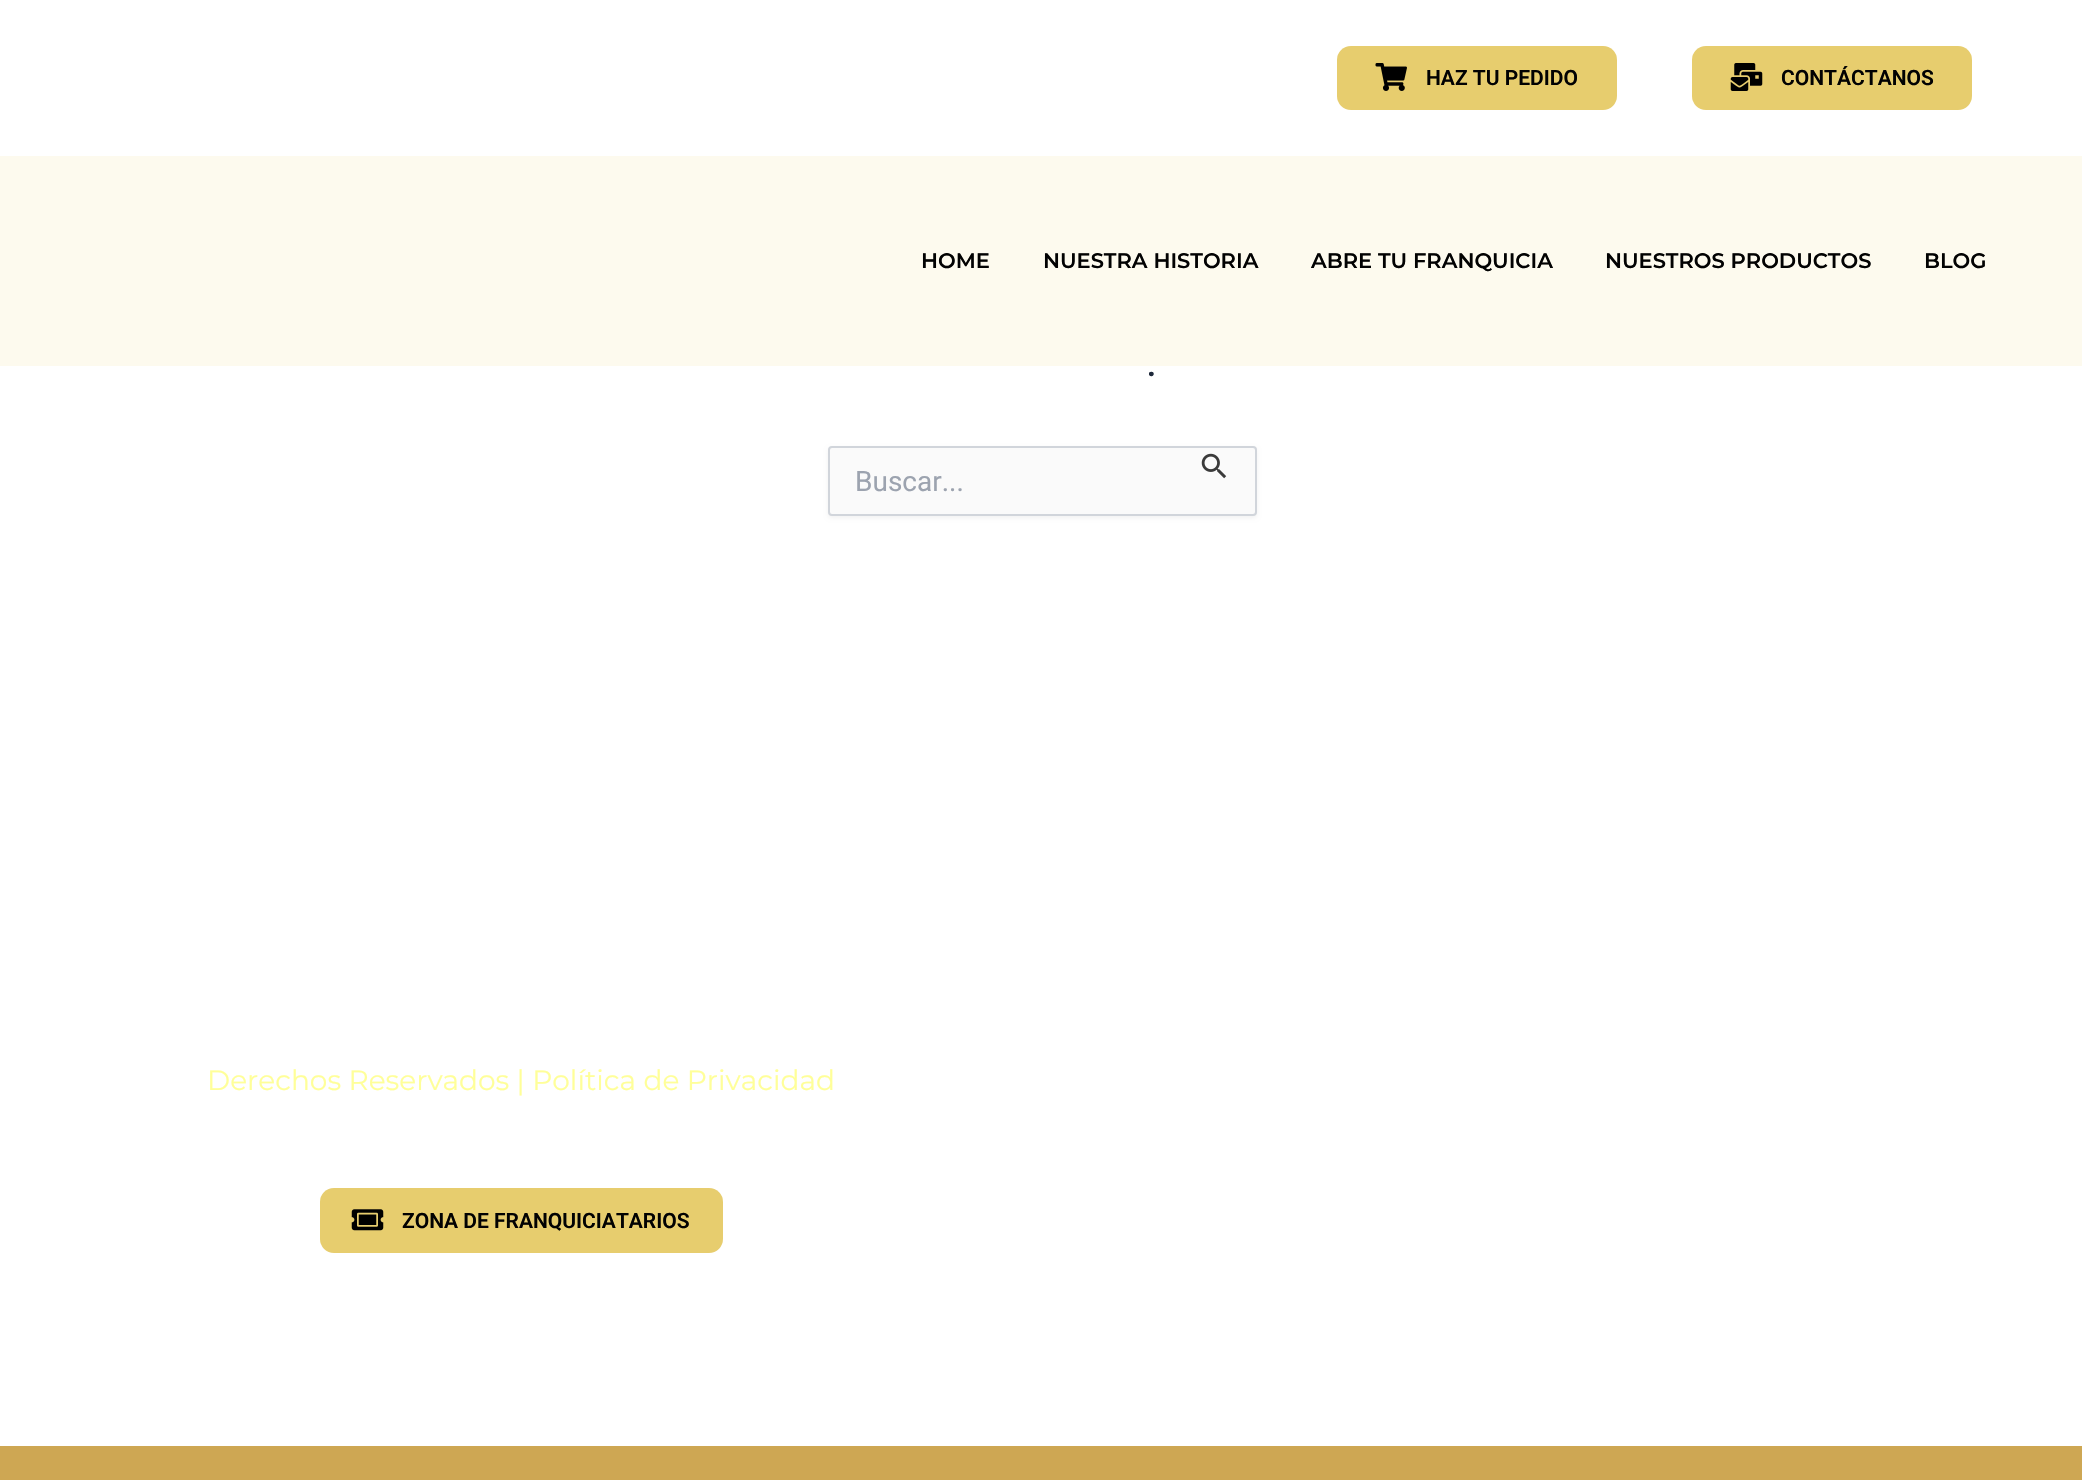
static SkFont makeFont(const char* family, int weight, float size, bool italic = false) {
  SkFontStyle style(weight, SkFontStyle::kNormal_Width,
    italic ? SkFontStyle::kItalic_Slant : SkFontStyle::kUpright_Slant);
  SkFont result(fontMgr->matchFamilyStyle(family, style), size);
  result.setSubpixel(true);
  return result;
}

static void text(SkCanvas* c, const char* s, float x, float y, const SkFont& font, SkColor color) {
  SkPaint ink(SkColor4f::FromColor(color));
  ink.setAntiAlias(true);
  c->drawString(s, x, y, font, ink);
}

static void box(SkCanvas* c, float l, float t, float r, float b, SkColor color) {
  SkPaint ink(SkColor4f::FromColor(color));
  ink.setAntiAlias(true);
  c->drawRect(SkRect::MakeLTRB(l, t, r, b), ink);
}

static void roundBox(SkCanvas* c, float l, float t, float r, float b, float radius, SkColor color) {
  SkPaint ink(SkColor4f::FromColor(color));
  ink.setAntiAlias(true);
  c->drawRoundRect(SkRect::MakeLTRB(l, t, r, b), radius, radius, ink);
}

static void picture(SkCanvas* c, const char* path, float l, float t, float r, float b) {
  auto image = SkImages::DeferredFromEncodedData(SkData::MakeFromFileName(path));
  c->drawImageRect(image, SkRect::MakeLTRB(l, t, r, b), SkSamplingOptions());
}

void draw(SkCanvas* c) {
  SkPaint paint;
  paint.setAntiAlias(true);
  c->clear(0xffffffff);
  roundBox(c, 1337, 46, 1617, 110, 14, 0xffe7cd6e);
  picture(c, "img_01.png", 1375, 63, 1407, 91);
  SkFont face1 = makeFont("Roboto", 600, 21);
  text(c, "HAZ TU PEDIDO", 1426, 85, face1, 0xff020202);
  roundBox(c, 1692, 46, 1972, 110, 14, 0xffe7cd6e);
  picture(c, "img_02.png", 1730, 63, 1763, 91);
  text(c, "CONTÁCTANOS", 1781, 85, face1, 0xff020202);
  box(c, 0, 156, 2082, 366, 0xfffdfaee);
  SkFont face2 = makeFont("Montserrat", 600, 21);
  text(c, "HOME", 921, 268, face2, 0xff020202);
  text(c, "NUESTRA HISTORIA", 1043, 268, face2, 0xff020202);
  text(c, "ABRE TU FRANQUICIA", 1311, 268, face2, 0xff020202);
  text(c, "NUESTROS PRODUCTOS", 1605, 268, face2, 0xff020202);
  text(c, "BLOG", 1924, 268, face2, 0xff020202);
  SkFont face3 = makeFont("Roboto", 400, 42);
  text(c, ".", 1146, 376, face3, 0xff1e293b);
  paint.setColor(0x0d000000);
  paint.setMaskFilter(SkMaskFilter::MakeBlur(kNormal_SkBlurStyle, 2));
  c->drawRoundRect(SkRect::MakeLTRB(828, 448, 1257, 518), 4, 4, paint);
  paint.setMaskFilter(nullptr);
  paint.setColor(0xfffafafa);
  c->drawRoundRect(SkRect::MakeLTRB(829, 447, 1256, 515), 3, 3, paint);
  paint.setStyle(SkPaint::kStroke_Style);
  paint.setStrokeWidth(2);
  paint.setColor(0xffd1d5db);
  c->drawRoundRect(SkRect::MakeLTRB(829, 447, 1256, 515), 3, 3, paint);
  picture(c, "img_03.png", 1201, 453, 1227, 479);
  SkFont face4 = makeFont("Roboto", 400, 28);
  text(c, "Buscar...", 855, 491, face4, 0xff9ca3af);
  SkFont face5 = makeFont("Montserrat", 400, 28);
  text(c, "Derechos Reservados | Política de Privacidad", 207, 1090, face5, 0xffffff99);
  roundBox(c, 320, 1188, 723, 1253, 14, 0xffe7cd6e);
  picture(c, "img_04.png", 351, 1209, 384, 1231);
  text(c, "ZONA DE FRANQUICIATARIOS", 402, 1228, face1, 0xff020202);
  box(c, 0, 1446, 2082, 1480, 0xffcea753);
}
